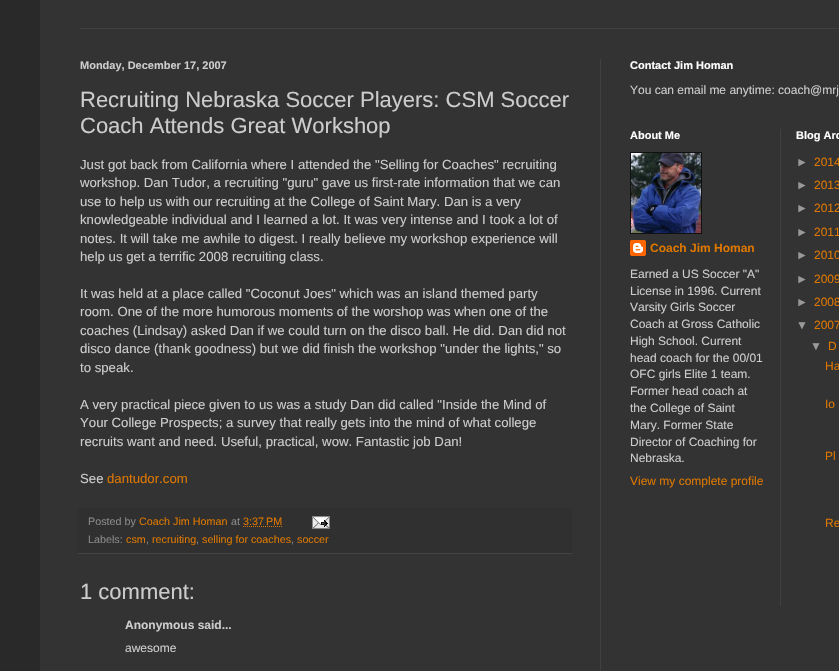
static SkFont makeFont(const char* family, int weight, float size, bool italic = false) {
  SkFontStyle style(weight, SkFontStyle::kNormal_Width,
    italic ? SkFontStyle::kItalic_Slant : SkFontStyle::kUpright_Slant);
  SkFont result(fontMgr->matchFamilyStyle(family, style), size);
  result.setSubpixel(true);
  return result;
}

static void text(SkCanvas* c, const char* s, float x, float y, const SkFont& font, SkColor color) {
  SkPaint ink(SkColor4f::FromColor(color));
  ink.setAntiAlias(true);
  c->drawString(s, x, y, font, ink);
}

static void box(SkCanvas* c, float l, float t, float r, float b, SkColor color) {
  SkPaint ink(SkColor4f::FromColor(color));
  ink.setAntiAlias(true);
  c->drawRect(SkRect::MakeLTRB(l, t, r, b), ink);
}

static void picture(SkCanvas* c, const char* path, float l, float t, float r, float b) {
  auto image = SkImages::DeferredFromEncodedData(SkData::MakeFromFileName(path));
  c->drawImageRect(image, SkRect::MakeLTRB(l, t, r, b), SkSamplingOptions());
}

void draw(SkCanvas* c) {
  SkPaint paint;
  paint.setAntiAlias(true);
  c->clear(0xff292929);
  box(c, 40, 0, 839, 671, 0xff333333);
  box(c, 80, 28, 839, 29, 0xff404040);
  box(c, 600, 59, 601, 671, 0xff404040);
  SkFont face1 = makeFont("Liberation Sans", 700, 11);
  text(c, "Monday, December 17, 2007", 80, 69, face1, 0xffcccccc);
  SkFont face2 = makeFont("Liberation Sans", 400, 22);
  text(c, "Recruiting Nebraska Soccer Players: CSM Soccer", 80, 107, face2, 0xffcccccc);
  text(c, "Coach Attends Great Workshop", 80, 133, face2, 0xffcccccc);
  SkFont face3 = makeFont("Liberation Sans", 400, 13.2f);
  text(c, "Just got back from California where I attended the \"Selling for Coaches\" recruiting", 80, 169, face3, 0xffcccccc);
  text(c, "workshop. Dan Tudor, a recruiting \"guru\" gave us first-rate information that we can", 80, 187, face3, 0xffcccccc);
  text(c, "use to help us with our recruiting at the College of Saint Mary. Dan is a very", 80, 206, face3, 0xffcccccc);
  text(c, "knowledgeable individual and I learned a lot. It was very intense and I took a lot of", 80, 224, face3, 0xffcccccc);
  text(c, "notes. It will take me awhile to digest. I really believe my workshop experience will", 80, 243, face3, 0xffcccccc);
  text(c, "help us get a terrific 2008 recruiting class.", 80, 261, face3, 0xffcccccc);
  text(c, "It was held at a place called \"Coconut Joes\" which was an island themed party", 80, 298, face3, 0xffcccccc);
  text(c, "room. One of the more humorous moments of the worshop was when one of the", 80, 316, face3, 0xffcccccc);
  text(c, "coaches (Lindsay) asked Dan if we could turn on the disco ball. He did. Dan did not", 80, 335, face3, 0xffcccccc);
  text(c, "disco dance (thank goodness) but we did finish the workshop \"under the lights,\" so", 80, 353, face3, 0xffcccccc);
  text(c, "to speak.", 80, 372, face3, 0xffcccccc);
  text(c, "A very practical piece given to us was a study Dan did called \"Inside the Mind of", 80, 409, face3, 0xffcccccc);
  text(c, "Your College Prospects; a survey that really gets into the mind of what college", 80, 427, face3, 0xffcccccc);
  text(c, "recruits want and need. Useful, practical, wow. Fantastic job Dan!", 80, 446, face3, 0xffcccccc);
  text(c, "See", 80, 483, face3, 0xffcccccc);
  text(c, "dantudor.com", 107, 483, face3, 0xffdd7700);
  box(c, 78, 508, 572, 553, 0xff303030);
  box(c, 78, 553, 572, 554, 0xff444444);
  SkFont face4 = makeFont("Liberation Sans", 400, 10.75f);
  text(c, "Posted by", 88, 525, face4, 0xff888888);
  text(c, "Coach Jim Homan", 139, 525, face4, 0xffdd7700);
  text(c, "at", 231, 525, face4, 0xff888888);
  text(c, "3:37 PM", 243, 525, face4, 0xffdd7700);
  paint.setStyle(SkPaint::kStroke_Style);
  paint.setStrokeWidth(1);
  paint.setColor(0xffdd7700);
  paint.setPathEffect(SkDashPathEffect::Make({{1, 1}}, 0));
  c->drawPath(SkPathBuilder().moveTo(243, 526.5f).lineTo(282, 526.5f).detach(), paint);
  paint.setPathEffect(nullptr);
  picture(c, "img_01.png", 312, 516, 330, 529);
  text(c, "Labels:", 88, 543, face4, 0xff888888);
  text(c, "csm", 126, 543, face4, 0xffdd7700);
  text(c, ",", 146, 543, face4, 0xff888888);
  text(c, "recruiting", 152, 543, face4, 0xffdd7700);
  text(c, ",", 196, 543, face4, 0xff888888);
  text(c, "selling for coaches", 202, 543, face4, 0xffdd7700);
  text(c, ",", 291, 543, face4, 0xff888888);
  text(c, "soccer", 297, 543, face4, 0xffdd7700);
  text(c, "1 comment:", 80, 599, face2, 0xffcccccc);
  SkFont face5 = makeFont("Liberation Sans", 700, 12);
  text(c, "Anonymous said...", 125, 629, face5, 0xffcccccc);
  SkFont face6 = makeFont("Liberation Sans", 400, 12);
  text(c, "awesome", 125, 652, face6, 0xffcccccc);
  text(c, "Contact Jim Homan", 630, 69, face1, 0xffffffff);
  text(c, "You can email me anytime: coach@mrj", 630, 94, face6, 0xffcccccc);
  text(c, "About Me", 630, 139, face1, 0xffffffff);
  box(c, 630, 152, 702, 234, 0xff111111);
  picture(c, "img_02.png", 631, 153, 701, 233);
  picture(c, "img_03.png", 630, 240, 646, 256);
  text(c, "Coach Jim Homan", 650, 252, face5, 0xffdd7700);
  text(c, "Earned a US Soccer \"A\"", 630, 278, face6, 0xffcccccc);
  text(c, "License in 1996. Current", 630, 295, face6, 0xffcccccc);
  text(c, "Varsity Girls Soccer", 630, 311, face6, 0xffcccccc);
  text(c, "Coach at Gross Catholic", 630, 328, face6, 0xffcccccc);
  text(c, "High School. Current", 630, 345, face6, 0xffcccccc);
  text(c, "head coach for the 00/01", 630, 362, face6, 0xffcccccc);
  text(c, "OFC girls Elite 1 team.", 630, 378, face6, 0xffcccccc);
  text(c, "Former head coach at", 630, 395, face6, 0xffcccccc);
  text(c, "the College of Saint", 630, 412, face6, 0xffcccccc);
  text(c, "Mary. Former State", 630, 429, face6, 0xffcccccc);
  text(c, "Director of Coaching for", 630, 446, face6, 0xffcccccc);
  text(c, "Nebraska.", 630, 462, face6, 0xffcccccc);
  text(c, "View my complete profile", 630, 485, face6, 0xffdd7700);
  box(c, 780, 129, 781, 606, 0xff404040);
  text(c, "Blog Arc", 796, 139, face1, 0xffffffff);
  text(c, "►", 796, 166, face6, 0xff999999);
  text(c, "2014", 814, 166, face6, 0xffdd7700);
  text(c, "►", 796, 189, face6, 0xff999999);
  text(c, "2013", 814, 189, face6, 0xffdd7700);
  text(c, "►", 796, 212, face6, 0xff999999);
  text(c, "2012", 814, 212, face6, 0xffdd7700);
  text(c, "►", 796, 236, face6, 0xff999999);
  text(c, "2011", 814, 236, face6, 0xffdd7700);
  text(c, "►", 796, 259, face6, 0xff999999);
  text(c, "2010", 814, 259, face6, 0xffdd7700);
  text(c, "►", 796, 283, face6, 0xff999999);
  text(c, "2009", 814, 283, face6, 0xffdd7700);
  text(c, "►", 796, 306, face6, 0xff999999);
  text(c, "2008", 814, 306, face6, 0xffdd7700);
  text(c, "▼", 796, 329, face6, 0xff999999);
  text(c, "2007", 814, 329, face6, 0xffdd7700);
  text(c, "▼", 810, 350, face6, 0xff999999);
  text(c, "D", 828, 350, face6, 0xffdd7700);
  text(c, "Ha", 825, 370, face6, 0xffdd7700);
  text(c, "Io", 825, 408, face6, 0xffdd7700);
  text(c, "Pl", 825, 460, face6, 0xffdd7700);
  text(c, "Re", 825, 527, face6, 0xffdd7700);
}
